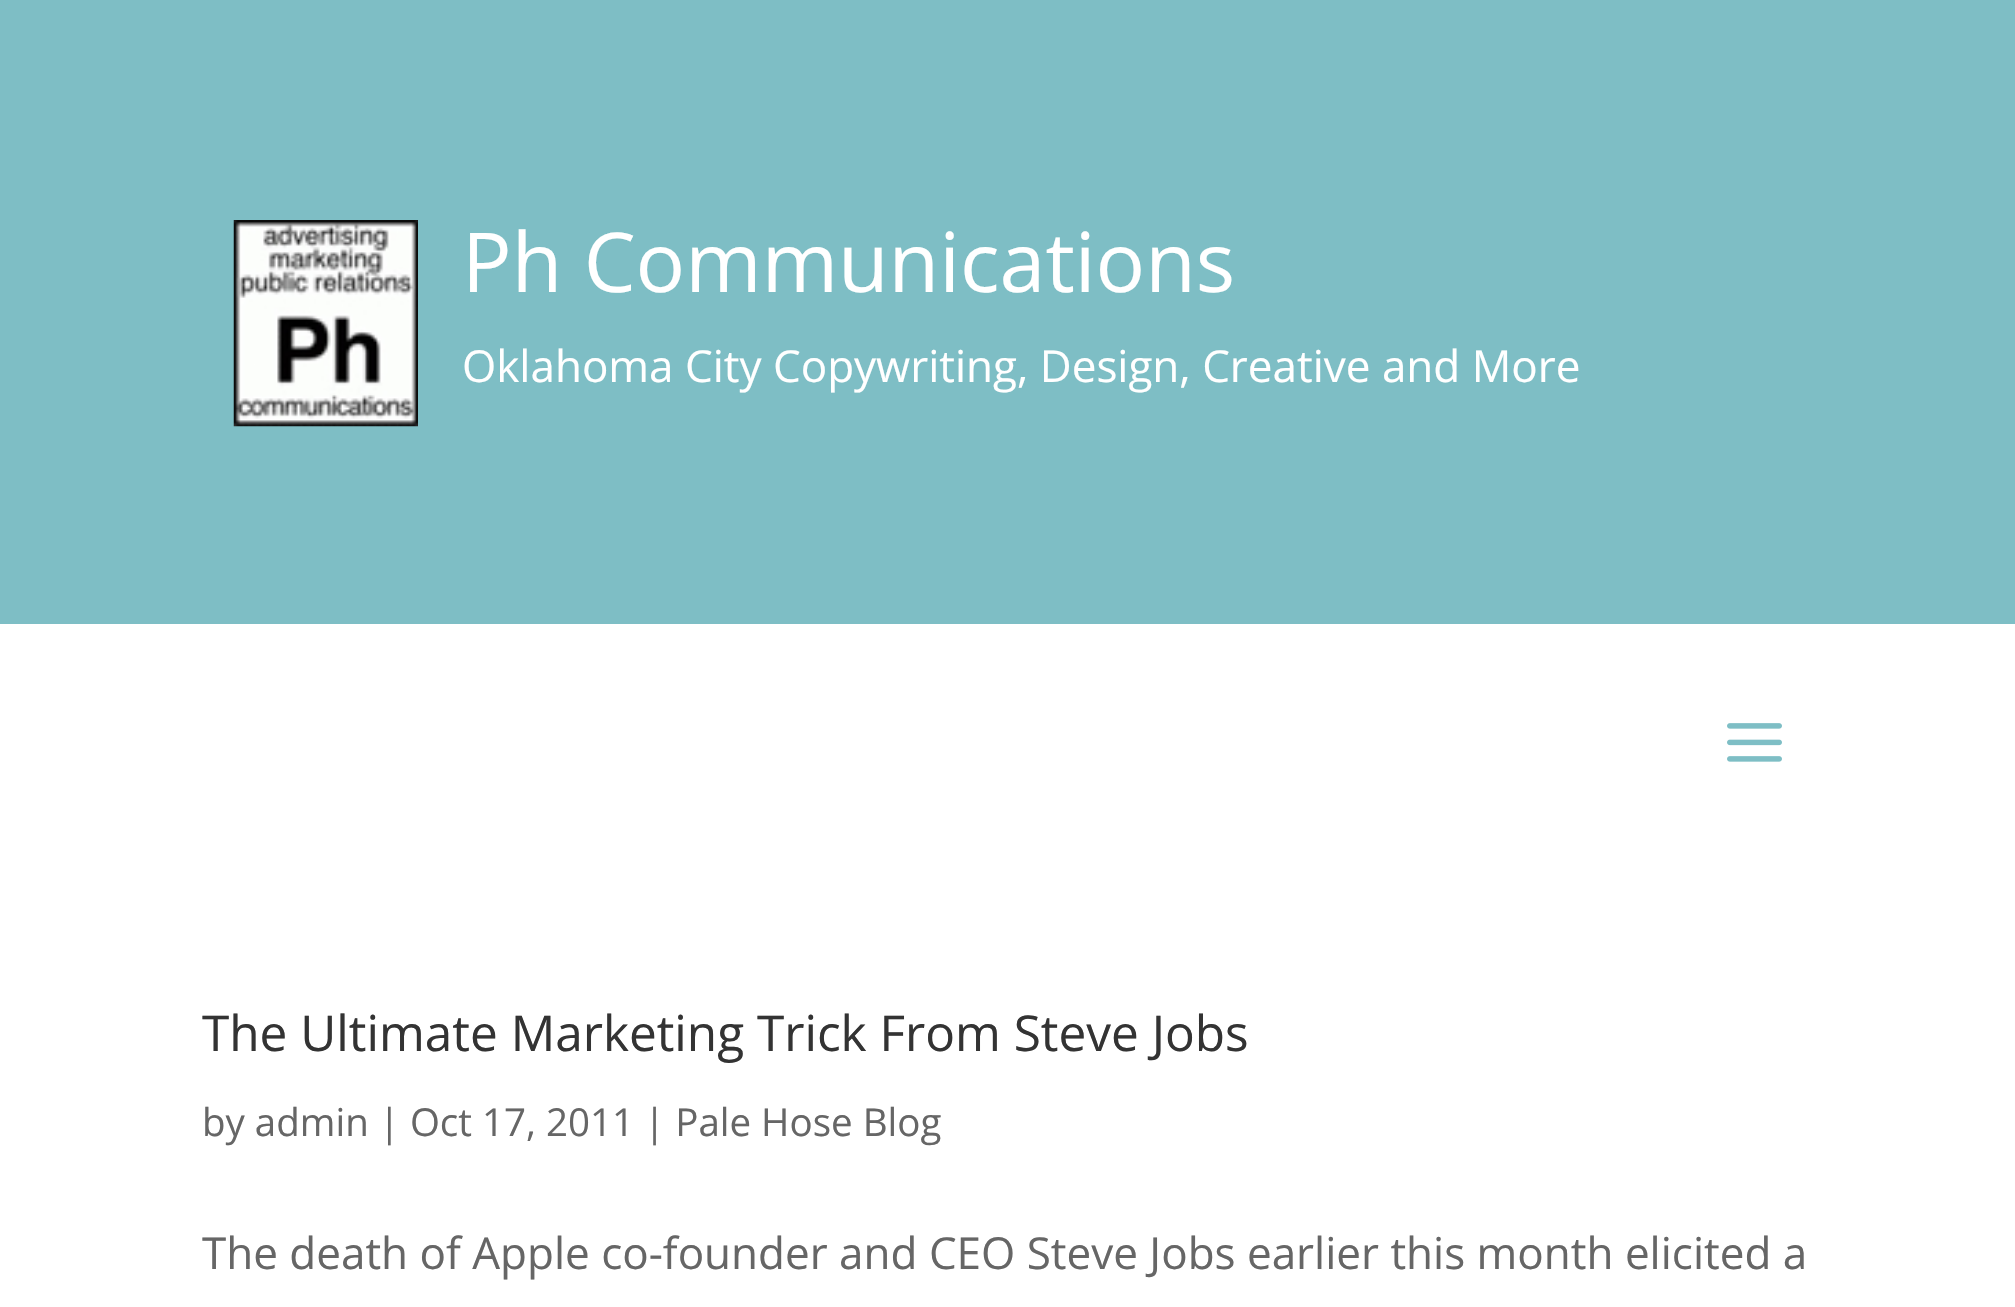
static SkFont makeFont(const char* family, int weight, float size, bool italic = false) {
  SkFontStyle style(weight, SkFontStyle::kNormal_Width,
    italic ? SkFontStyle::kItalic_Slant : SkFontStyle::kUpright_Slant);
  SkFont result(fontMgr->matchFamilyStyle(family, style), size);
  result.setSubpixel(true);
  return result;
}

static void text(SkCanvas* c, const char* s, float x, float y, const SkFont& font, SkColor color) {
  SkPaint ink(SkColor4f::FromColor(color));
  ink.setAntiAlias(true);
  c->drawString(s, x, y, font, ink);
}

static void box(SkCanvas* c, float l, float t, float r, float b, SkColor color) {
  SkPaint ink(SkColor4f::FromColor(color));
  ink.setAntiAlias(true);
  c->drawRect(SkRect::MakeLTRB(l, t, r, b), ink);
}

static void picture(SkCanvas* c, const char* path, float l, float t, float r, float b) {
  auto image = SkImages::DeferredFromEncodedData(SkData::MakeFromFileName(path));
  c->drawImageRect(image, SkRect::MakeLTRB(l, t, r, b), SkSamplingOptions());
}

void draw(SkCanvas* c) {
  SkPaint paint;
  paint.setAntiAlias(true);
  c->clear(0xffffffff);
  box(c, 0, 0, 2015, 624, 0xff7ebec5);
  picture(c, "img_01.png", 233, 220, 418, 427);
  SkFont face1 = makeFont("Open Sans", 400, 82.5f);
  text(c, "Ph Communications", 462, 292, face1, 0xffffffff);
  SkFont face2 = makeFont("Open Sans", 400, 44);
  text(c, "Oklahoma City Copywriting, Design, Creative and More", 462, 382, face2, 0xffffffff);
  picture(c, "img_02.png", 1727, 723, 1782, 762);
  SkFont face3 = makeFont("Open Sans", 400, 49.5f);
  text(c, "The Ultimate Marketing Trick From Steve Jobs", 202, 1051, face3, 0xff333333);
  SkFont face4 = makeFont("Open Sans", 400, 38.5f);
  text(c, "by admin | Oct 17, 2011 | Pale Hose Blog", 202, 1136, face4, 0xff666666);
  text(c, "The death of Apple co-founder and CEO Steve Jobs earlier this month elicited a", 202, 1269, face2, 0xff666666);
}
